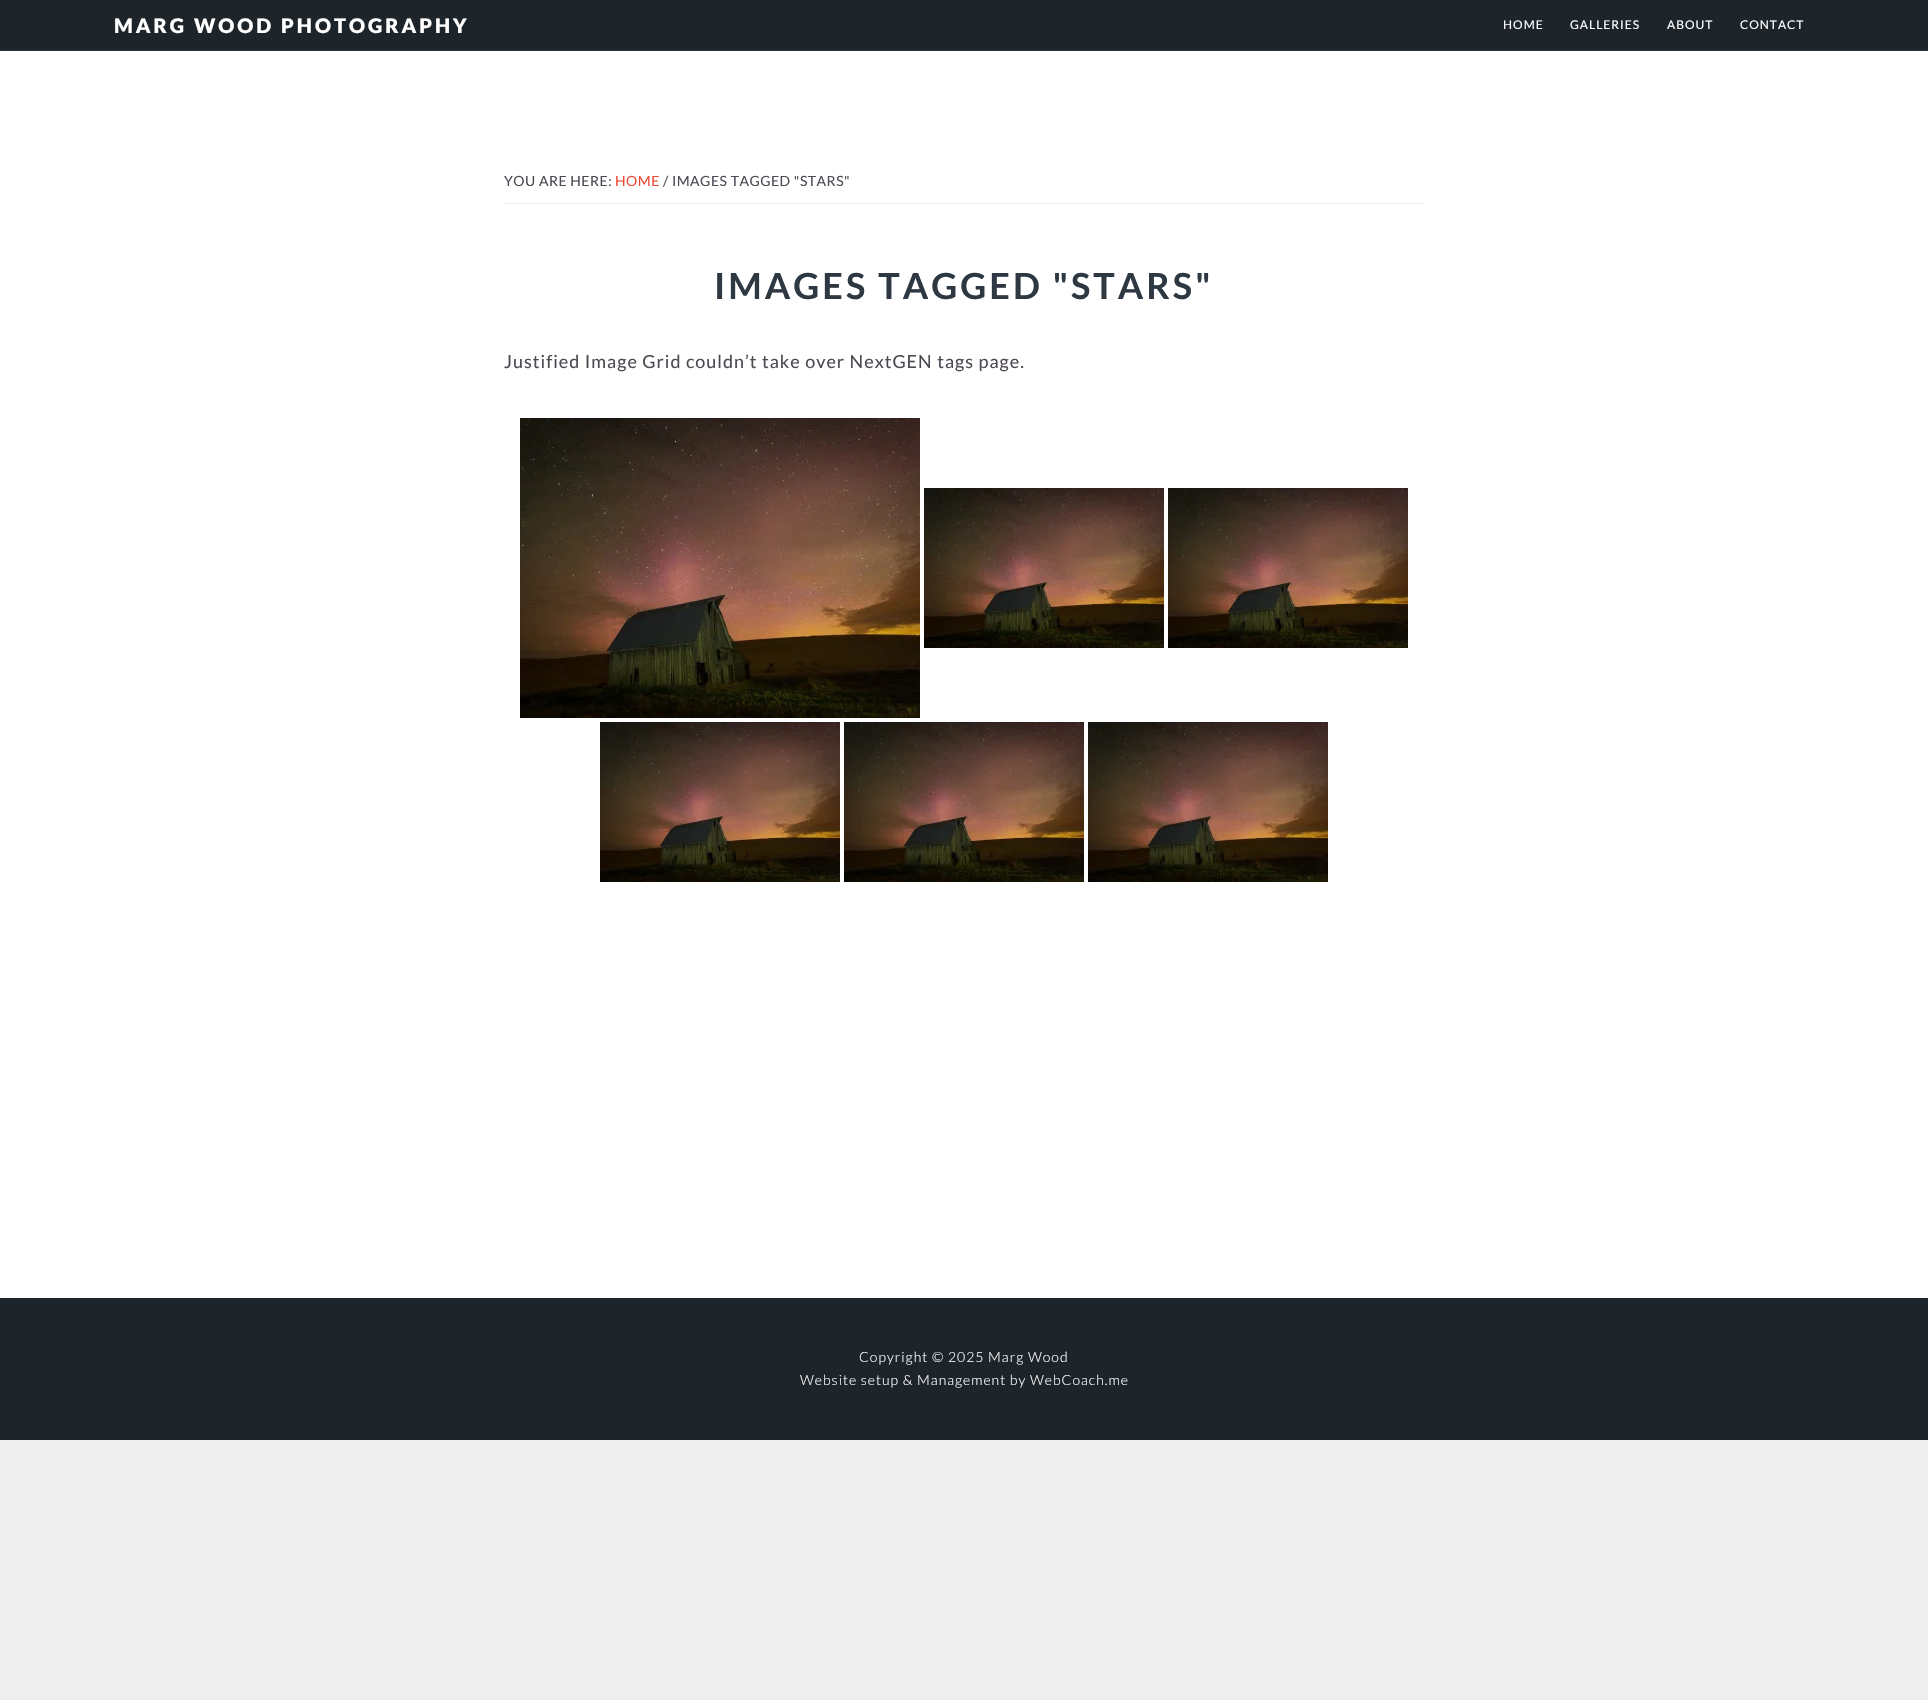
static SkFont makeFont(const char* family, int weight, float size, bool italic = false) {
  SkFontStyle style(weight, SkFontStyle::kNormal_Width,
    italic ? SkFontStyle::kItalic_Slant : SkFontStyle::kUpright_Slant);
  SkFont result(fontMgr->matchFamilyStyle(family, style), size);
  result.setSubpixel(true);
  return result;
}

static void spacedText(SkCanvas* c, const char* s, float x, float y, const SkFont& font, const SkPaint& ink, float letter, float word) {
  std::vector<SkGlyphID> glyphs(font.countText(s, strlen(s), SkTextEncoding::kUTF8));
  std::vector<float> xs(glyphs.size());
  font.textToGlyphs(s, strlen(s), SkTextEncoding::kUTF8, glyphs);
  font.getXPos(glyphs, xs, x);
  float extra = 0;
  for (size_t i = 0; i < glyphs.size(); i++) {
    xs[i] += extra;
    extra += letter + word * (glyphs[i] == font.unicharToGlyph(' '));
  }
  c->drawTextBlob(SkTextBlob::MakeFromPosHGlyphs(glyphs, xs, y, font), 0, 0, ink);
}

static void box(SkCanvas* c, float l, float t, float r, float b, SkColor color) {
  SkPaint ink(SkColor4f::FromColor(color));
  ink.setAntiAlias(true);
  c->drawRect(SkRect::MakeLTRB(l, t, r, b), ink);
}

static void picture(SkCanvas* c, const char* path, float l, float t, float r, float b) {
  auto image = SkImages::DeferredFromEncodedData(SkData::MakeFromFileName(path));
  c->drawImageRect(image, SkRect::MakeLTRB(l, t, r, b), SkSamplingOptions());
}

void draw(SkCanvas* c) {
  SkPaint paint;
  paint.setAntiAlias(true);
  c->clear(0xffeeeeee);
  box(c, 0, 51, 1928, 1298, 0xffffffff);
  box(c, 0, 0, 1928, 50, 0xff1d242a);
  box(c, 0, 50, 1928, 51, 0xff2a3137);
  SkFont face1 = makeFont("Lato", 900, 20);
  paint.setColor(0xffffffff);
  spacedText(c, "MARG WOOD PHOTOGRAPHY", 114, 33, face1, paint, 3, 0);
  SkFont face2 = makeFont("Lato", 400, 12);
  spacedText(c, "HOME", 1503, 29, face2, paint, 1, 0);
  spacedText(c, "GALLERIES", 1570, 29, face2, paint, 1, 0);
  spacedText(c, "ABOUT", 1667, 29, face2, paint, 1, 0);
  spacedText(c, "CONTACT", 1740, 29, face2, paint, 1, 0);
  box(c, 504, 203, 1424, 204, 0xffeeeeee);
  SkFont face3 = makeFont("Lato", 400, 14);
  paint.setColor(0xff4e4852);
  spacedText(c, "YOU ARE HERE:", 504, 186, face3, paint, 0.5f, 0);
  paint.setColor(0xffed4933);
  spacedText(c, "HOME", 615, 186, face3, paint, 0.5f, 0);
  paint.setColor(0xff4e4852);
  spacedText(c, "/ IMAGES TAGGED \"STARS\"", 663, 186, face3, paint, 0.5f, 0);
  SkFont face4 = makeFont("Lato", 700, 36);
  paint.setColor(0xff2e3842);
  spacedText(c, "IMAGES TAGGED \"STARS\"", 714, 299, face4, paint, 3, 0);
  SkFont face5 = makeFont("Lato", 400, 18);
  paint.setColor(0xff4e4852);
  spacedText(c, "Justified Image Grid couldn’t take over NextGEN tags page.", 504, 368, face5, paint, 1, 0);
  picture(c, "img_01.png", 520, 418, 920, 718);
  picture(c, "img_02.png", 924, 488, 1164, 648);
  picture(c, "img_03.png", 1168, 488, 1408, 648);
  picture(c, "img_03.png", 600, 722, 840, 882);
  picture(c, "img_03.png", 844, 722, 1084, 882);
  picture(c, "img_04.png", 1088, 722, 1328, 882);
  box(c, 0, 1298, 1928, 1440, 0xff1d242a);
  SkFont face6 = makeFont("Lato", 300, 14);
  paint.setColor(0xffffffff);
  spacedText(c, "Copyright © 2025 Marg Wood", 859, 1362, face6, paint, 1, 0);
  spacedText(c, "Website setup & Management by WebCoach.me", 800, 1385, face6, paint, 1, 0);
}
